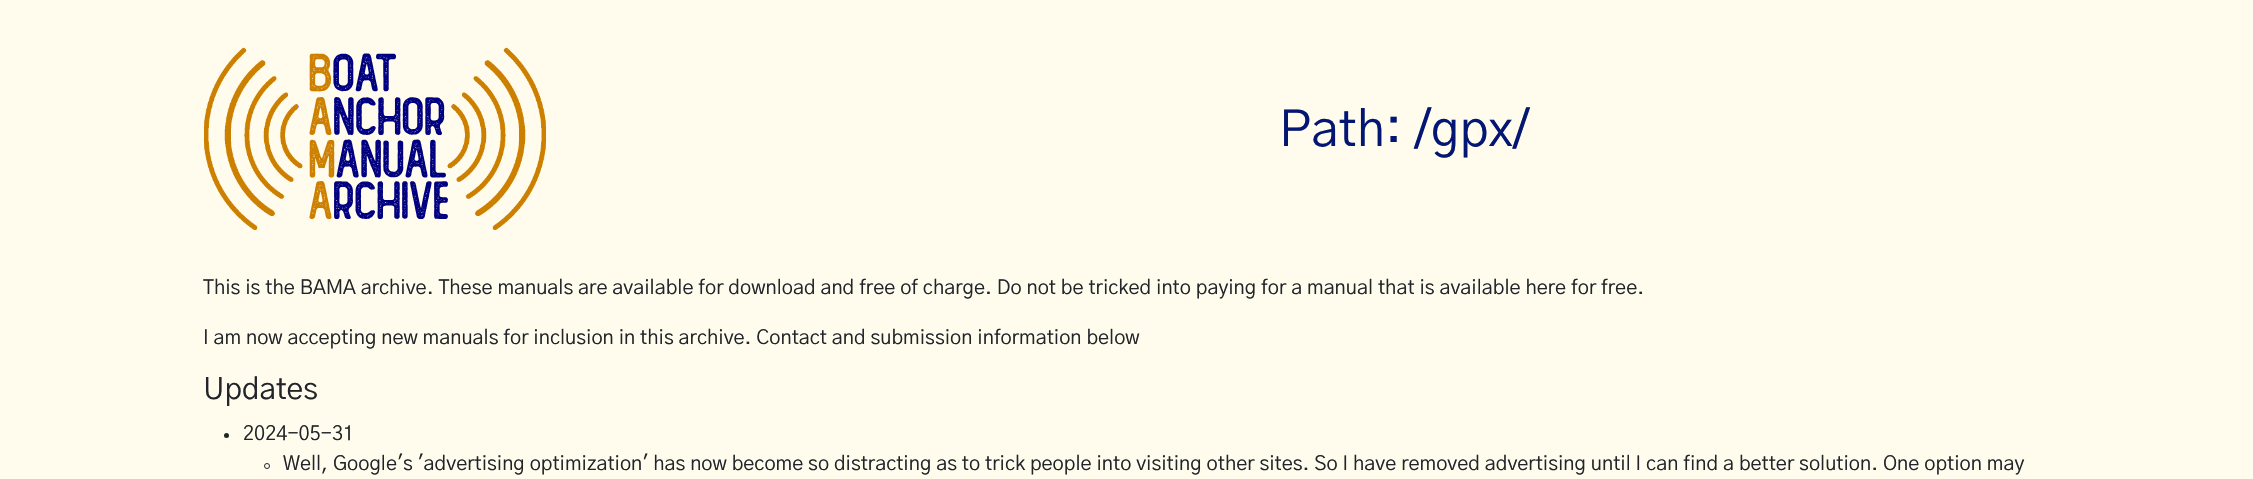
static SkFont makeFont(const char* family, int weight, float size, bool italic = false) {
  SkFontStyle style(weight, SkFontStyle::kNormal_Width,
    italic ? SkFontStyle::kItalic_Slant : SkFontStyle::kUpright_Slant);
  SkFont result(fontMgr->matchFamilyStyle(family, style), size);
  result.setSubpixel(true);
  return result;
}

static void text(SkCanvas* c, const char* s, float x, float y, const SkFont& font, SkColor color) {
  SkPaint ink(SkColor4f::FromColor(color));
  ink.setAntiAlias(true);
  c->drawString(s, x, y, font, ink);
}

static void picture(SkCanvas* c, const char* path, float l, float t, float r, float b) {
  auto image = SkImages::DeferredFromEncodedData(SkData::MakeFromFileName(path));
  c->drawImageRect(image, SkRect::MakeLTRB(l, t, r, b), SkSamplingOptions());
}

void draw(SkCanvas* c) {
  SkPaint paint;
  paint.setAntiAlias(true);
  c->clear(0xfffffced);
  picture(c, "img_01.png", 204, 47, 546, 230);
  SkFont face1 = makeFont("Gothic A1", 400, 50);
  text(c, "Path: /gpx/", 1279, 146, face1, 0xff031673);
  SkFont face2 = makeFont("Gothic A1", 400, 20);
  text(c, "This is the BAMA archive. These manuals are available for download and free of charge. Do not be tricked into paying for a manual that is available here for free.", 203, 294, face2, 0xff212529);
  text(c, "I am now accepting new manuals for inclusion in this archive. Contact and submission information below", 203, 344, face2, 0xff212529);
  SkFont face3 = makeFont("Gothic A1", 400, 30);
  text(c, "Updates", 203, 399, face3, 0xff212529);
  paint.setColor(0xff212529);
  c->drawCircle(226.5f, 435.5f, 2.5f, paint);
  text(c, "2024-05-31", 243, 440, face2, 0xff212529);
  paint.setStyle(SkPaint::kStroke_Style);
  paint.setStrokeWidth(1);
  c->drawCircle(267, 466, 2.5f, paint);
  text(c, "Well, Google's 'advertising optimization' has now become so distracting as to trick people into visiting other sites. So I have removed advertising until I can find a better solution. One option may", 283, 470, face2, 0xff212529);
}
